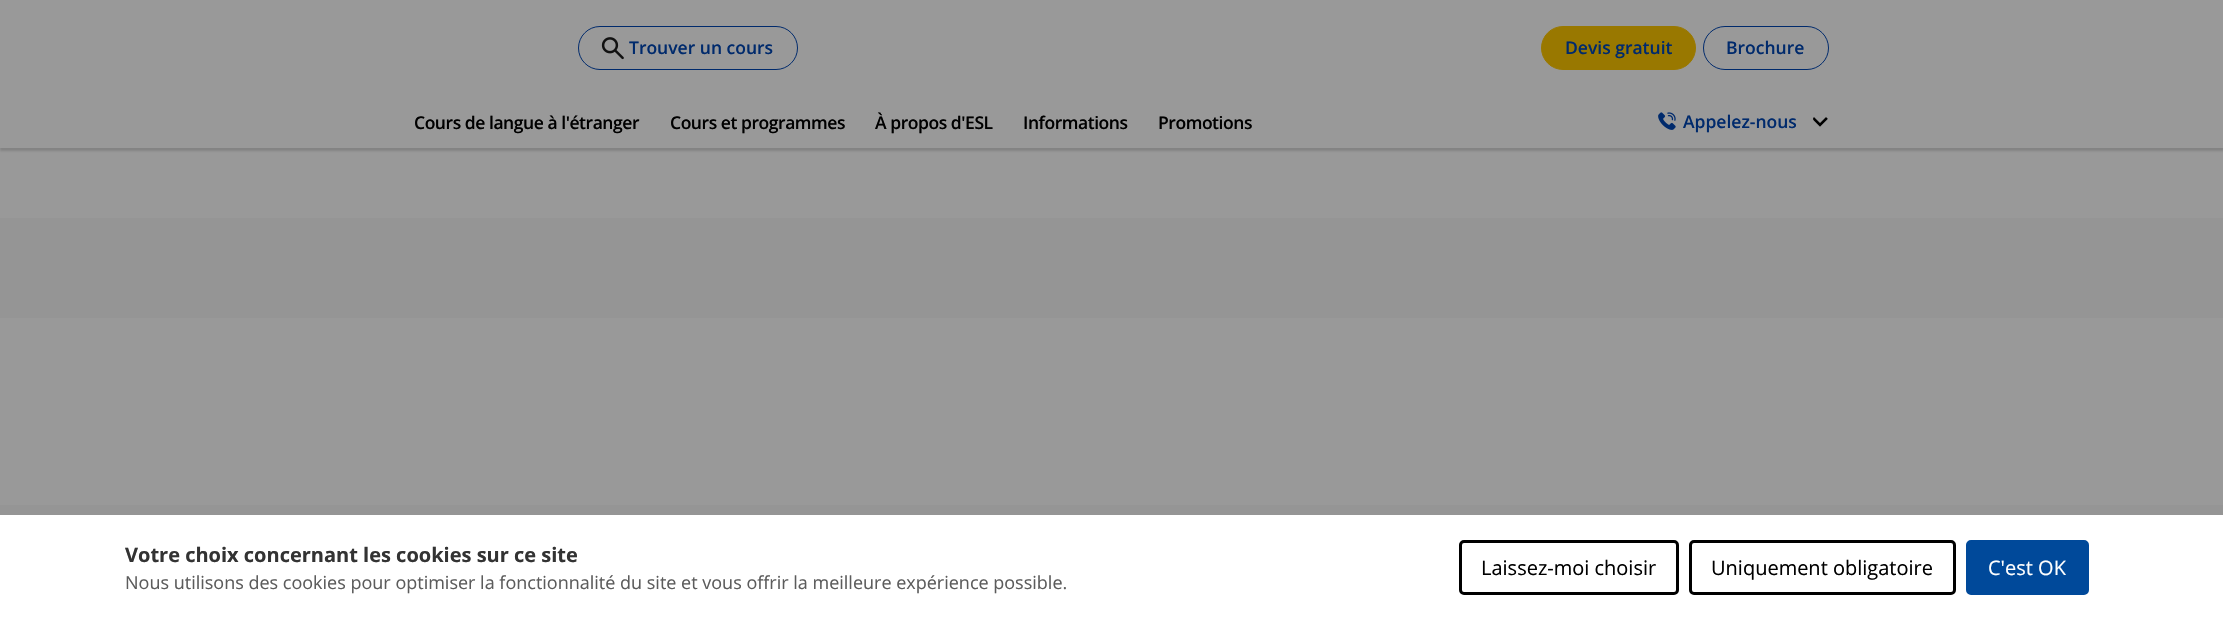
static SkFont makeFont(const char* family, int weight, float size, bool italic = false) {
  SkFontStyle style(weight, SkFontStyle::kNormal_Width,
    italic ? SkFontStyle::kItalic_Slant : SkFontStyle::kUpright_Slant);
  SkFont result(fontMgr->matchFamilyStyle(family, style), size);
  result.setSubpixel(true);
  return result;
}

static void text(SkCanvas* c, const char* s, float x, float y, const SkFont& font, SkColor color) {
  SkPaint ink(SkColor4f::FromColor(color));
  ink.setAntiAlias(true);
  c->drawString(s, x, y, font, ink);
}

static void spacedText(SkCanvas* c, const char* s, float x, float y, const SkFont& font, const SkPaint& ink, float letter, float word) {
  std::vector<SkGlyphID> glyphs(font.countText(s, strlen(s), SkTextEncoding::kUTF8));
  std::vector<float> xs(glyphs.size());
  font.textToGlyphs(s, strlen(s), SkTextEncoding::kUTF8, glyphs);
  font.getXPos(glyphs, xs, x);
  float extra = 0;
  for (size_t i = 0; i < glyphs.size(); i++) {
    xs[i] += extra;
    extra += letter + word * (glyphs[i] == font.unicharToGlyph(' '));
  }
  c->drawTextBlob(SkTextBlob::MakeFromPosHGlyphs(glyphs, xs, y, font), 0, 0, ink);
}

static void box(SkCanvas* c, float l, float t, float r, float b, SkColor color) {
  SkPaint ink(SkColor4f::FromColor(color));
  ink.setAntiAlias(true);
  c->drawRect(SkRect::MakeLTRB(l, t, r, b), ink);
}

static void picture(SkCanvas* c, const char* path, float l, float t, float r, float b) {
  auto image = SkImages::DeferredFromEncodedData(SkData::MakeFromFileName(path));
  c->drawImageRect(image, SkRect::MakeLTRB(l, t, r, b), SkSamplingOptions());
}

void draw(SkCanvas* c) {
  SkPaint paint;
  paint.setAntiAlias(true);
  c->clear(0xff959595);
  box(c, 0, 0, 2223, 95, 0xff999999);
  paint.setStyle(SkPaint::kStroke_Style);
  paint.setStrokeWidth(1);
  paint.setColor(0xff002a6c);
  c->drawRoundRect(SkRect::MakeLTRB(578.5f, 26.5f, 797.5f, 69.5f), 21.5f, 21.5f, paint);
  picture(c, "img_01.png", 601, 37, 624, 60);
  SkFont face1 = makeFont("Open Sans", 600, 17.5f);
  text(c, "Trouver un cours", 629, 54, face1, 0xff002a6c);
  paint.setStyle(SkPaint::kFill_Style);
  paint.setColor(0xff997800);
  c->drawRoundRect(SkRect::MakeLTRB(1541.5f, 26.5f, 1695.5f, 69.5f), 21.5f, 21.5f, paint);
  paint.setStyle(SkPaint::kStroke_Style);
  c->drawRoundRect(SkRect::MakeLTRB(1541.5f, 26.5f, 1695.5f, 69.5f), 21.5f, 21.5f, paint);
  text(c, "Devis gratuit", 1565, 54, face1, 0xff002a6c);
  paint.setColor(0xff002a6c);
  c->drawRoundRect(SkRect::MakeLTRB(1703.5f, 26.5f, 1828.5f, 69.5f), 21.5f, 21.5f, paint);
  text(c, "Brochure", 1726, 54, face1, 0xff002a6c);
  box(c, 0, 148, 2223, 218, 0xff999999);
  paint.setStyle(SkPaint::kFill_Style);
  paint.setColor(0xff838383);
  paint.setMaskFilter(SkMaskFilter::MakeBlur(kNormal_SkBlurStyle, 1));
  c->drawRect(SkRect::MakeLTRB(0, 99, 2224, 151), paint);
  paint.setMaskFilter(nullptr);
  box(c, 0, 95, 2223, 148, 0xff999999);
  paint.setColor(0xff000000);
  spacedText(c, "Cours de langue à l'étranger", 414, 129, face1, paint, -0.45f, 0);
  spacedText(c, "Cours et programmes", 670, 129, face1, paint, -0.45f, 0);
  spacedText(c, "À propos d'ESL", 875, 129, face1, paint, -0.45f, 0);
  spacedText(c, "Informations", 1023, 129, face1, paint, -0.45f, 0);
  spacedText(c, "Promotions", 1158, 129, face1, paint, -0.45f, 0);
  picture(c, "img_02.png", 1658, 112, 1676, 130);
  text(c, "Appelez-nous", 1683, 128, face1, 0xff002a6c);
  picture(c, "img_03.png", 1813, 117, 1828, 127);
  box(c, 0, 318, 2223, 505, 0xff999999);
  box(c, 0, 515, 2223, 620, 0xffffffff);
  SkFont face2 = makeFont("Open Sans", 700, 20);
  text(c, "Votre choix concernant les cookies sur ce site", 125, 562, face2, 0xff333333);
  SkFont face3 = makeFont("Open Sans", 400, 18);
  text(c, "Nous utilisons des cookies pour optimiser la fonctionnalité du site et vous offrir la meilleure expérience possible.", 125, 589, face3, 0xff5c5c5c);
  paint.setStyle(SkPaint::kStroke_Style);
  paint.setStrokeWidth(3);
  c->drawRoundRect(SkRect::MakeLTRB(1460.5f, 541.5f, 1677.5f, 593.5f), 3.5f, 3.5f, paint);
  SkFont face4 = makeFont("Open Sans", 400, 20);
  text(c, "Laissez-moi choisir", 1481, 575, face4, 0xff000000);
  c->drawRoundRect(SkRect::MakeLTRB(1690.5f, 541.5f, 1954.5f, 593.5f), 3.5f, 3.5f, paint);
  text(c, "Uniquement obligatoire", 1711, 575, face4, 0xff000000);
  paint.setStyle(SkPaint::kFill_Style);
  paint.setColor(0xff00499a);
  c->drawRoundRect(SkRect::MakeLTRB(1967.5f, 541.5f, 2087.5f, 593.5f), 3.5f, 3.5f, paint);
  paint.setStyle(SkPaint::kStroke_Style);
  c->drawRoundRect(SkRect::MakeLTRB(1967.5f, 541.5f, 2087.5f, 593.5f), 3.5f, 3.5f, paint);
  text(c, "C'est OK", 1988, 575, face4, 0xffffffff);
}
